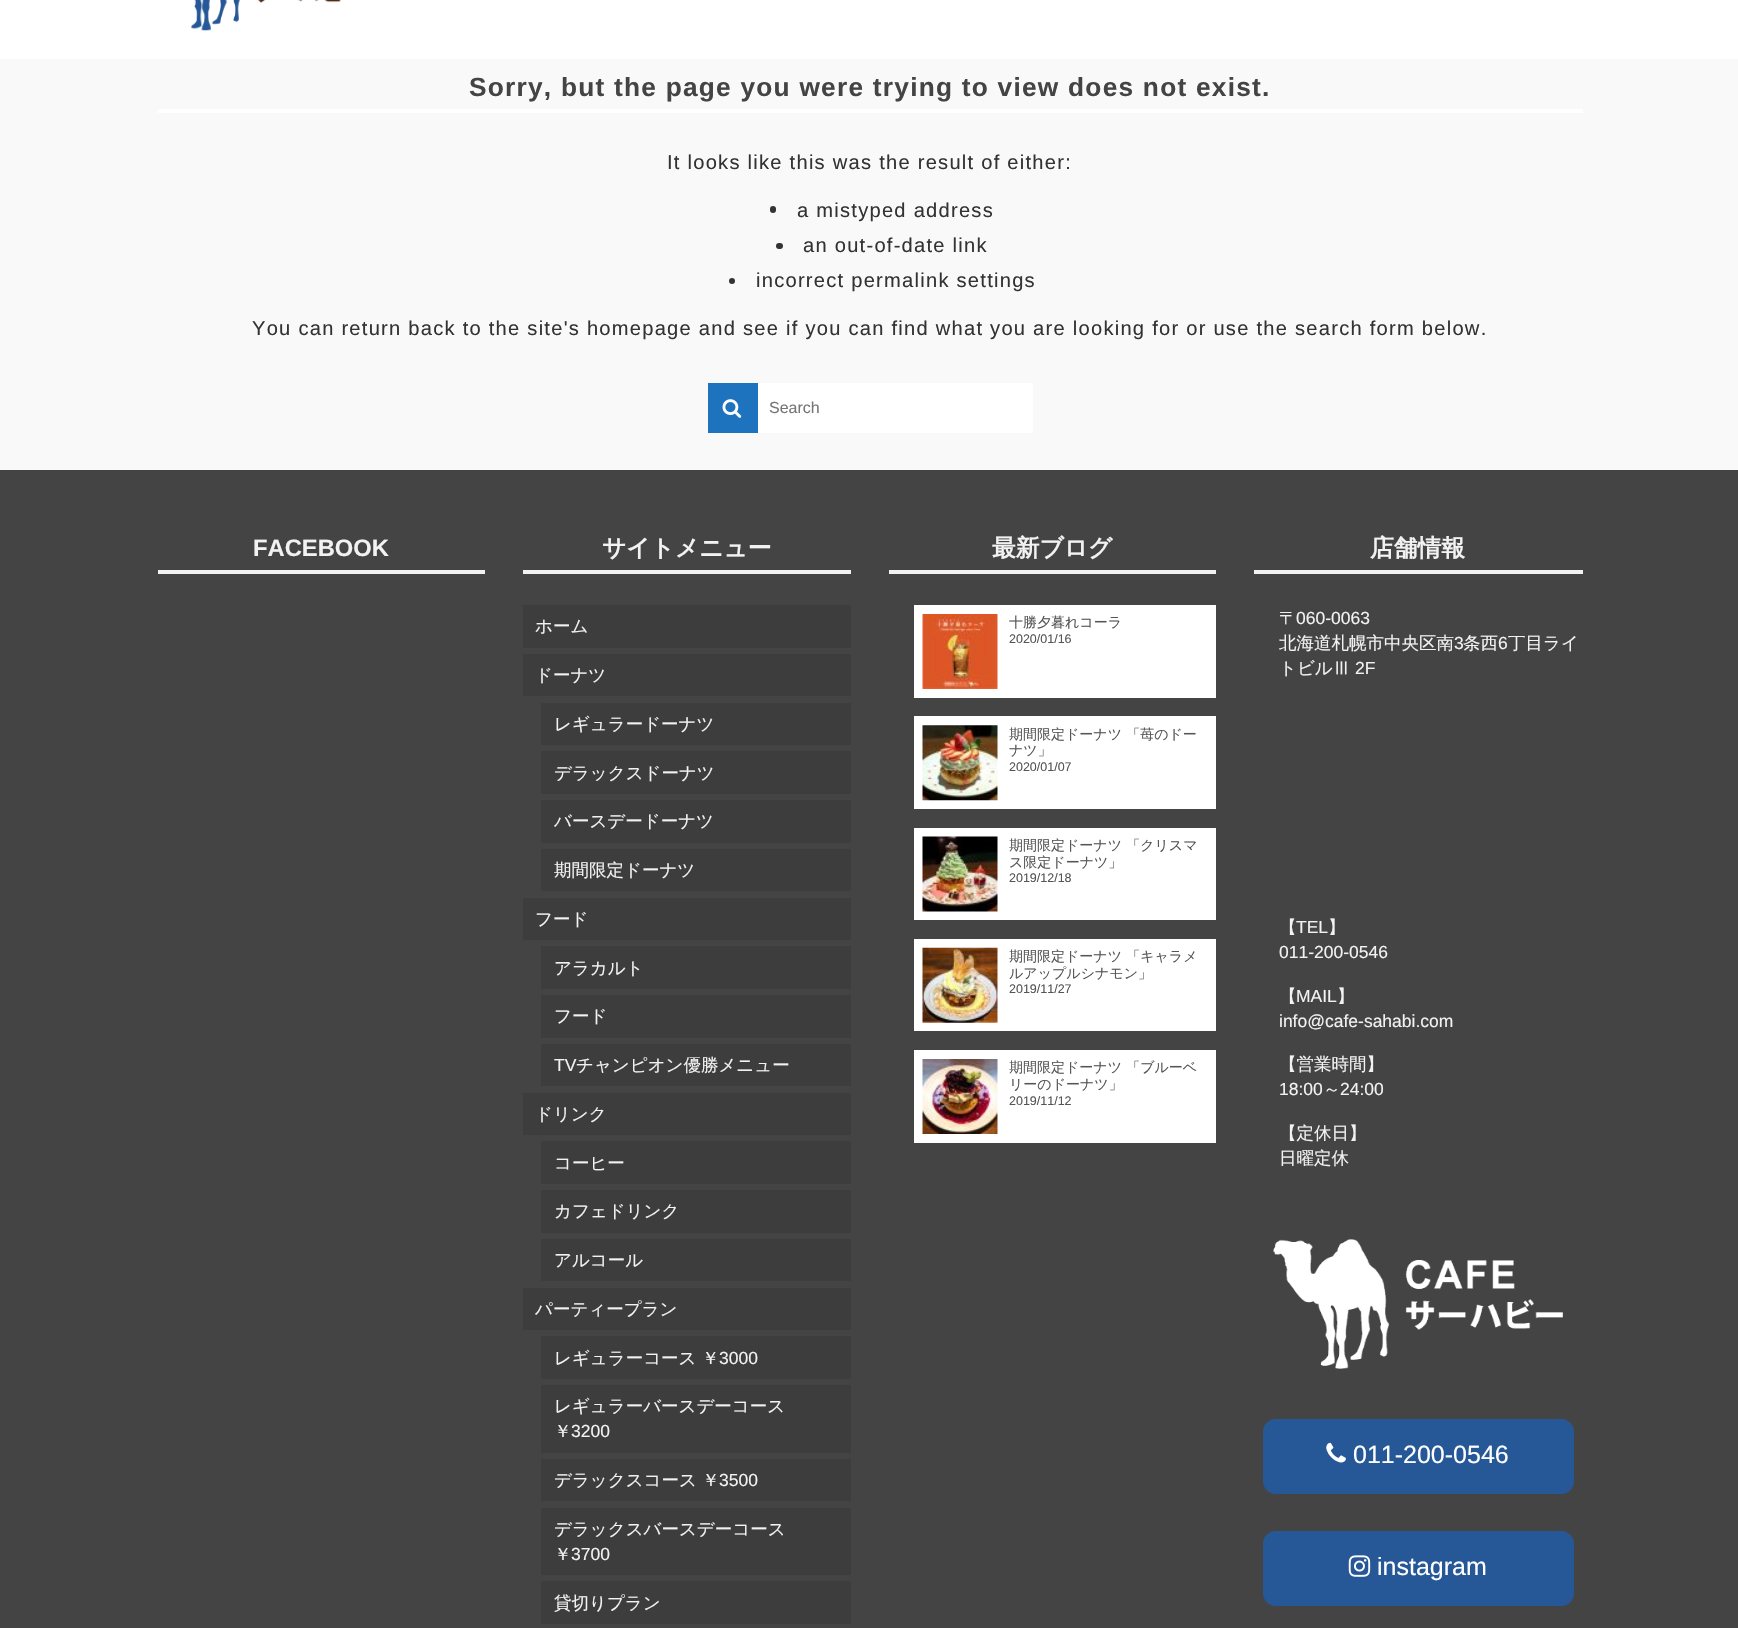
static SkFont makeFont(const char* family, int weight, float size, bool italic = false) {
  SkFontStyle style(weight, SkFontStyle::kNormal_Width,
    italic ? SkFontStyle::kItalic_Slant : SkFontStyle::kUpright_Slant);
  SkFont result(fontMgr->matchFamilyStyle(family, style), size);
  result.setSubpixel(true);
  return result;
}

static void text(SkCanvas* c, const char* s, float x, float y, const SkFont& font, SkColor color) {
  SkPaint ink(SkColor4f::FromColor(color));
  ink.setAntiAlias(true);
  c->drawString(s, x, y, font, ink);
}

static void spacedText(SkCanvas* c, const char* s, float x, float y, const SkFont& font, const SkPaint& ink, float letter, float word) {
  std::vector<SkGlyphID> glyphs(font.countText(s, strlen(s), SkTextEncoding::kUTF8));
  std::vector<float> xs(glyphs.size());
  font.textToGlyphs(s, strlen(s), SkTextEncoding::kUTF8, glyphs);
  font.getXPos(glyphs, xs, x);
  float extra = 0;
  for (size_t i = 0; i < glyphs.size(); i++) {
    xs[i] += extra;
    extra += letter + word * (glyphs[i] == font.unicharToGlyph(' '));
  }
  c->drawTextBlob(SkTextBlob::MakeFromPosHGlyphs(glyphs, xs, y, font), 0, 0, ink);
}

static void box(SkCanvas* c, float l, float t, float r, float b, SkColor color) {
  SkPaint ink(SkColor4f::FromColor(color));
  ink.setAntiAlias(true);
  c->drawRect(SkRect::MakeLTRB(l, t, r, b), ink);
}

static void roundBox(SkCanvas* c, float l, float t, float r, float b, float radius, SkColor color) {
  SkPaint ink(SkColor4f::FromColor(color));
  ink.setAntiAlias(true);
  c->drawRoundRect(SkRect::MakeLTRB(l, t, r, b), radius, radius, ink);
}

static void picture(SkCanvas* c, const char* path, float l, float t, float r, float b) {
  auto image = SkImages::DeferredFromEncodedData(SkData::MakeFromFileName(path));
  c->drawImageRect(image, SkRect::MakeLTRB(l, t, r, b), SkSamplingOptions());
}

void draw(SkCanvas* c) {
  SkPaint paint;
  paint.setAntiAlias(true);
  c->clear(0xffffffff);
  picture(c, "img_01.png", 191, 0, 341, 31);
  box(c, 0, 59, 1738, 470, 0xfff9f9f9);
  SkFont face1 = makeFont("Liberation Sans", 700, 26.25f);
  paint.setColor(0xff444444);
  spacedText(c, "Sorry, but the page you were trying to view does not exist.", 469, 96, face1, paint, 1.25f, 0);
  box(c, 158, 109, 1583, 113, 0xffffffff);
  SkFont face2 = makeFont("Liberation Sans", 400, 20.12f);
  paint.setColor(0xff333333);
  spacedText(c, "It looks like this was the result of either:", 667, 169, face2, paint, 1.25f, 0);
  roundBox(c, 770, 206, 776, 213, 3, 0xff333333);
  spacedText(c, "a mistyped address", 797, 217, face2, paint, 1.25f, 0);
  roundBox(c, 776, 243, 783, 249, 3, 0xff333333);
  spacedText(c, "an out-of-date link", 803, 252, face2, paint, 1.25f, 0);
  c->drawCircle(732, 281, 3, paint);
  spacedText(c, "incorrect permalink settings", 756, 287, face2, paint, 1.25f, 0);
  spacedText(c, "You can return back to the site's homepage and see if you can find what you are looking for or use the search form below.", 252, 335, face2, paint, 1.25f, 0);
  box(c, 708, 383, 758, 433, 0xff1e73be);
  picture(c, "img_02.png", 722, 399, 742, 418);
  box(c, 758, 383, 1033, 433, 0xffffffff);
  SkFont face3 = makeFont("Liberation Sans", 400, 16);
  text(c, "Search", 769, 413, face3, 0xff757575);
  box(c, 0, 470, 1738, 1628, 0xff444444);
  SkFont face4 = makeFont("Liberation Sans", 700, 23.75f);
  text(c, "FACEBOOK", 253, 556, face4, 0xfff2f2f2);
  box(c, 158, 570, 485, 574, 0xfff2f2f2);
  SkFont face5 = makeFont("WenQuanYi Zen Hei", 700, 23.75f);
  text(c, "サイトメニュー", 602, 556, face5, 0xfff2f2f2);
  box(c, 523, 570, 851, 574, 0xfff2f2f2);
  box(c, 523, 605, 851, 648, 0xff3d3d3d);
  SkFont face6 = makeFont("WenQuanYi Zen Hei", 500, 17.5f);
  text(c, "ホーム", 535, 632, face6, 0xfff2f2f2);
  box(c, 523, 654, 851, 696, 0xff3d3d3d);
  text(c, "ドーナツ", 535, 681, face6, 0xfff2f2f2);
  box(c, 541, 703, 851, 745, 0xff3d3d3d);
  text(c, "レギュラードーナツ", 554, 730, face6, 0xfff2f2f2);
  box(c, 541, 751, 851, 794, 0xff3d3d3d);
  text(c, "デラックスドーナツ", 554, 779, face6, 0xfff2f2f2);
  box(c, 541, 800, 851, 843, 0xff3d3d3d);
  text(c, "バースデードーナツ", 554, 827, face6, 0xfff2f2f2);
  box(c, 541, 849, 851, 891, 0xff3d3d3d);
  text(c, "期間限定ドーナツ", 554, 876, face6, 0xfff2f2f2);
  box(c, 523, 898, 851, 940, 0xff3d3d3d);
  text(c, "フード", 535, 925, face6, 0xfff2f2f2);
  box(c, 541, 946, 851, 989, 0xff3d3d3d);
  text(c, "アラカルト", 554, 974, face6, 0xfff2f2f2);
  box(c, 541, 995, 851, 1038, 0xff3d3d3d);
  text(c, "フード", 554, 1022, face6, 0xfff2f2f2);
  box(c, 541, 1044, 851, 1086, 0xff3d3d3d);
  SkFont face7 = makeFont("Liberation Sans", 400, 17.5f);
  text(c, "TV", 554, 1071, face7, 0xfff2f2f2);
  text(c, "チャンピオン優勝メニュー", 576, 1071, face6, 0xfff2f2f2);
  box(c, 523, 1093, 851, 1135, 0xff3d3d3d);
  text(c, "ドリンク", 535, 1120, face6, 0xfff2f2f2);
  box(c, 541, 1141, 851, 1184, 0xff3d3d3d);
  text(c, "コーヒー", 554, 1169, face6, 0xfff2f2f2);
  box(c, 541, 1190, 851, 1233, 0xff3d3d3d);
  text(c, "カフェドリンク", 554, 1217, face6, 0xfff2f2f2);
  box(c, 541, 1239, 851, 1281, 0xff3d3d3d);
  text(c, "アルコール", 554, 1266, face6, 0xfff2f2f2);
  box(c, 523, 1288, 851, 1330, 0xff3d3d3d);
  text(c, "パーティープラン", 535, 1315, face6, 0xfff2f2f2);
  box(c, 541, 1336, 851, 1379, 0xff3d3d3d);
  text(c, "レギュラーコース ￥", 554, 1364, face6, 0xfff2f2f2);
  text(c, "3000", 719, 1364, face7, 0xfff2f2f2);
  box(c, 541, 1385, 851, 1453, 0xff3d3d3d);
  text(c, "レギュラーバースデーコース", 554, 1412, face6, 0xfff2f2f2);
  text(c, "￥", 554, 1437, face6, 0xfff2f2f2);
  text(c, "3200", 571, 1437, face7, 0xfff2f2f2);
  box(c, 541, 1459, 851, 1501, 0xff3d3d3d);
  text(c, "デラックスコース ￥", 554, 1486, face6, 0xfff2f2f2);
  text(c, "3500", 719, 1486, face7, 0xfff2f2f2);
  box(c, 541, 1508, 851, 1575, 0xff3d3d3d);
  text(c, "デラックスバースデーコース", 554, 1535, face6, 0xfff2f2f2);
  text(c, "￥", 554, 1560, face6, 0xfff2f2f2);
  text(c, "3700", 571, 1560, face7, 0xfff2f2f2);
  box(c, 541, 1581, 851, 1624, 0xff3d3d3d);
  text(c, "貸切りプラン", 554, 1609, face6, 0xfff2f2f2);
  text(c, "最新ブログ", 992, 556, face5, 0xfff2f2f2);
  box(c, 889, 570, 1216, 574, 0xfff2f2f2);
  box(c, 914, 605, 1216, 698, 0xffffffff);
  picture(c, "img_03.png", 922, 614, 998, 689);
  SkFont face8 = makeFont("WenQuanYi Zen Hei", 500, 14);
  text(c, "十勝夕暮れコーラ", 1009, 627, face8, 0xff555555);
  SkFont face9 = makeFont("Liberation Sans", 400, 12.5f);
  text(c, "2020/01/16", 1009, 643, face9, 0xff555555);
  box(c, 914, 716, 1216, 809, 0xffffffff);
  picture(c, "img_04.png", 922, 725, 998, 801);
  text(c, "期間限定ドーナツ 「苺のドー", 1009, 739, face8, 0xff555555);
  text(c, "ナツ」", 1009, 755, face8, 0xff555555);
  text(c, "2020/01/07", 1009, 771, face9, 0xff555555);
  box(c, 914, 828, 1216, 920, 0xffffffff);
  picture(c, "img_05.png", 922, 836, 998, 912);
  text(c, "期間限定ドーナツ 「クリスマ", 1009, 850, face8, 0xff555555);
  text(c, "ス限定ドーナツ」", 1009, 867, face8, 0xff555555);
  text(c, "2019/12/18", 1009, 882, face9, 0xff555555);
  box(c, 914, 939, 1216, 1031, 0xffffffff);
  picture(c, "img_06.png", 922, 947, 998, 1023);
  text(c, "期間限定ドーナツ 「キャラメ", 1009, 961, face8, 0xff555555);
  text(c, "ルアップルシナモン」", 1009, 978, face8, 0xff555555);
  text(c, "2019/11/27", 1009, 993, face9, 0xff555555);
  box(c, 914, 1050, 1216, 1143, 0xffffffff);
  picture(c, "img_07.png", 922, 1059, 998, 1134);
  text(c, "期間限定ドーナツ 「ブルーベ", 1009, 1072, face8, 0xff555555);
  text(c, "リーのドーナツ」", 1009, 1089, face8, 0xff555555);
  text(c, "2019/11/12", 1009, 1105, face9, 0xff555555);
  text(c, "店舗情報", 1370, 556, face5, 0xfff2f2f2);
  box(c, 1254, 570, 1583, 574, 0xfff2f2f2);
  text(c, "〒", 1279, 624, face6, 0xfff2f2f2);
  text(c, "060-0063", 1296, 624, face7, 0xfff2f2f2);
  text(c, "北海道札幌市中央区南", 1279, 649, face6, 0xfff2f2f2);
  text(c, "3", 1454, 649, face7, 0xfff2f2f2);
  text(c, "条西", 1463, 649, face6, 0xfff2f2f2);
  text(c, "6", 1498, 649, face7, 0xfff2f2f2);
  text(c, "丁目ライ", 1508, 649, face6, 0xfff2f2f2);
  text(c, "トビルⅢ", 1279, 674, face6, 0xfff2f2f2);
  text(c, "2F", 1355, 674, face7, 0xfff2f2f2);
  text(c, "【", 1279, 933, face6, 0xfff2f2f2);
  text(c, "TEL", 1296, 933, face7, 0xfff2f2f2);
  text(c, "】", 1328, 933, face6, 0xfff2f2f2);
  text(c, "011-200-0546", 1279, 958, face7, 0xfff2f2f2);
  text(c, "【", 1279, 1002, face6, 0xfff2f2f2);
  text(c, "MAIL", 1296, 1002, face7, 0xfff2f2f2);
  text(c, "】", 1337, 1002, face6, 0xfff2f2f2);
  text(c, "info@cafe-sahabi.com", 1279, 1027, face7, 0xfff2f2f2);
  text(c, "【営業時間】", 1279, 1070, face6, 0xfff2f2f2);
  text(c, "18:00", 1279, 1095, face7, 0xfff2f2f2);
  text(c, "～", 1323, 1095, face6, 0xfff2f2f2);
  text(c, "24:00", 1340, 1095, face7, 0xfff2f2f2);
  text(c, "【定休日】", 1279, 1139, face6, 0xfff2f2f2);
  text(c, "日曜定休", 1279, 1164, face6, 0xfff2f2f2);
  picture(c, "img_08.png", 1273, 1239, 1563, 1369);
  roundBox(c, 1263, 1419, 1574, 1494, 13, 0xff265898);
  picture(c, "img_09.png", 1326, 1442, 1346, 1463);
  SkFont face10 = makeFont("Liberation Sans", 400, 25);
  text(c, "011-200-0546", 1353, 1463, face10, 0xffffffff);
  roundBox(c, 1263, 1531, 1574, 1606, 13, 0xff265898);
  picture(c, "img_10.png", 1348, 1555, 1371, 1577);
  text(c, "instagram", 1377, 1575, face10, 0xffffffff);
}
